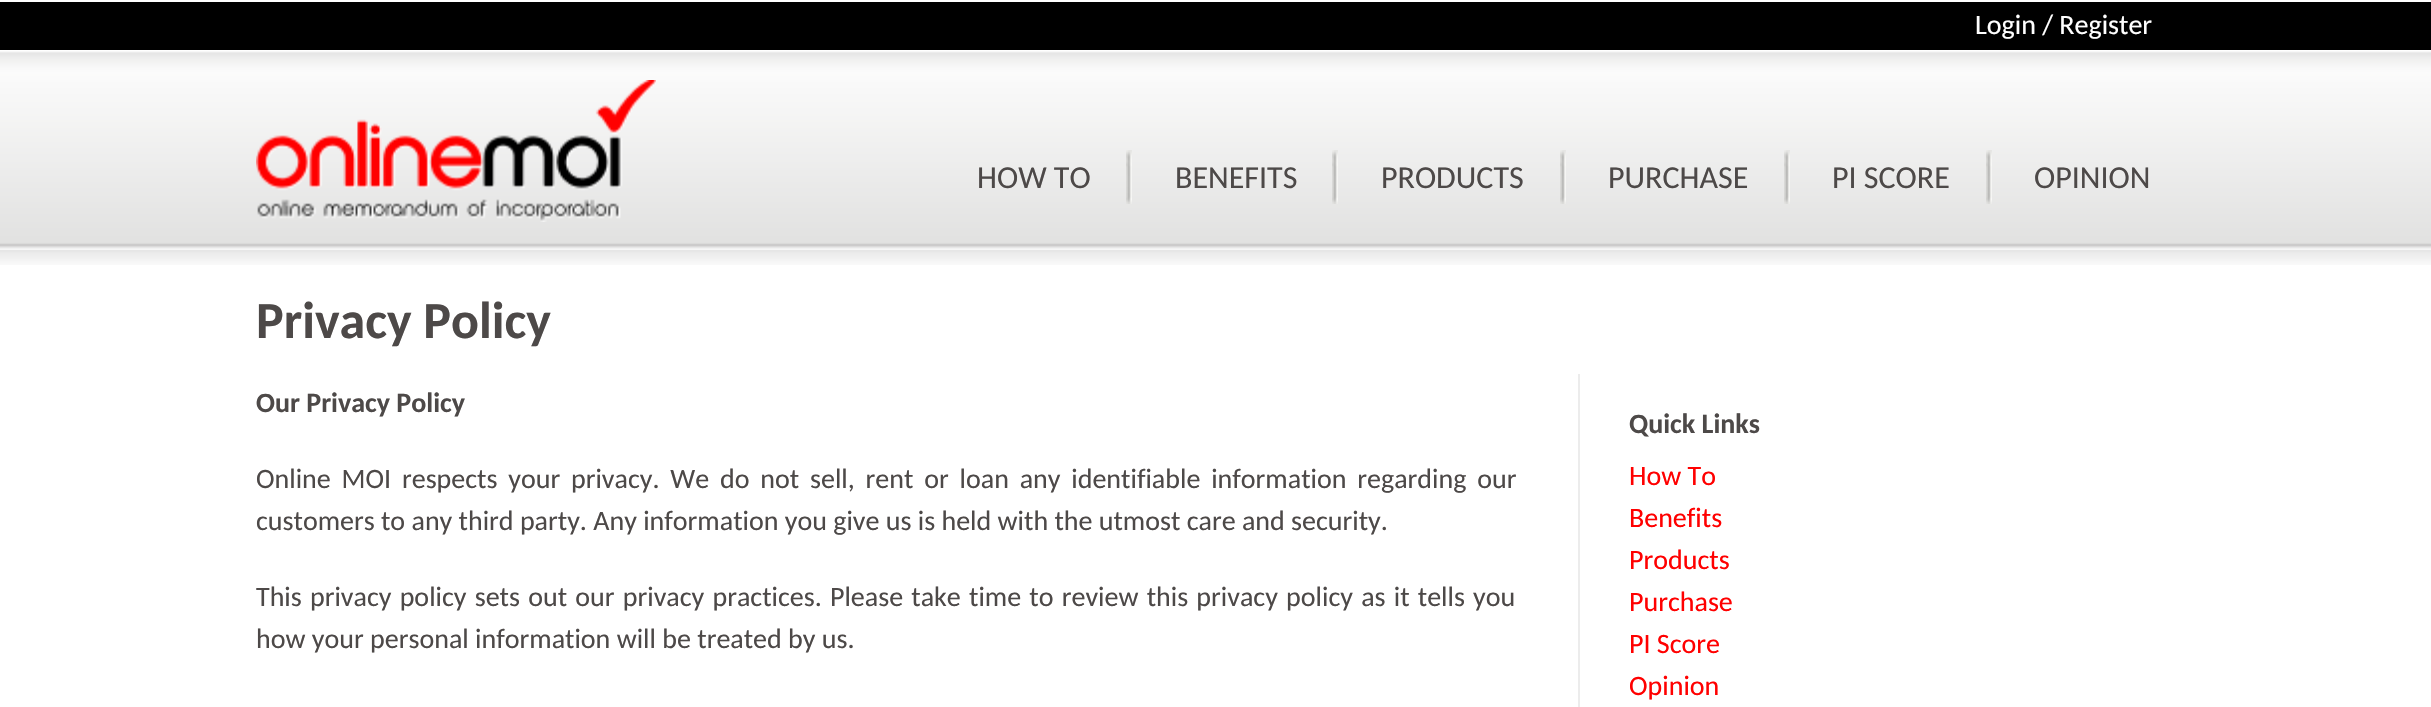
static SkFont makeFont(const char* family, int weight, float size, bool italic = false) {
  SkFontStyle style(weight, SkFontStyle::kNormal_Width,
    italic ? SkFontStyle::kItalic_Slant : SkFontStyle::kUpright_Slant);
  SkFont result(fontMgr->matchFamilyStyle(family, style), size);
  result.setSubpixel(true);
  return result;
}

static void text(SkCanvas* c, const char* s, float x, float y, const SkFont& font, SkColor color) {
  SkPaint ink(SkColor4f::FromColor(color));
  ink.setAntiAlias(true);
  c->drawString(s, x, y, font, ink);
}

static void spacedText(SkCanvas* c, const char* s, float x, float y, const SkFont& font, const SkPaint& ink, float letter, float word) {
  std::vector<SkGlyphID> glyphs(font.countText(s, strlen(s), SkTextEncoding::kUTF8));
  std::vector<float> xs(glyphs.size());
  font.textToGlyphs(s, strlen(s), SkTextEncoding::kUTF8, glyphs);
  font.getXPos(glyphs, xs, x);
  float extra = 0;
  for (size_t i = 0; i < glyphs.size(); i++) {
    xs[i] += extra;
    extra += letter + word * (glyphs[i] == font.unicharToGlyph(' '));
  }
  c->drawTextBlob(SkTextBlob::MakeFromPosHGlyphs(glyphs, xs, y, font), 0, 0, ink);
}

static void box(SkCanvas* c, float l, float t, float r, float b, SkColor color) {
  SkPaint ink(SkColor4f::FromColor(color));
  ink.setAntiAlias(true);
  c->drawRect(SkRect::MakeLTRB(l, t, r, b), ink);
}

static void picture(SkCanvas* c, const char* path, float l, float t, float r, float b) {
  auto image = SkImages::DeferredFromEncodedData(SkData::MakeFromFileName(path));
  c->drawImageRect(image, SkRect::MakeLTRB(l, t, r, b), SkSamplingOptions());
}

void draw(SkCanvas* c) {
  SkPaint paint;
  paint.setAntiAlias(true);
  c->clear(0xffffffff);
  box(c, 0, 2, 2431, 50, 0xff000000);
  SkFont face1 = makeFont("Carlito", 400, 28);
  text(c, "Login / Register", 1975, 34, face1, 0xffffffff);
  picture(c, "img_01.png", 0, 51, 2431, 250);
  picture(c, "img_02.png", 256, 80, 656, 222);
  picture(c, "img_03.png", 1126, 150, 1132, 204);
  SkFont face2 = makeFont("Carlito", 400, 32);
  text(c, "HOW TO", 977, 188, face2, 0xff4d4948);
  picture(c, "img_03.png", 1332, 150, 1338, 204);
  text(c, "BENEFITS", 1175, 188, face2, 0xff4d4948);
  picture(c, "img_03.png", 1560, 150, 1566, 204);
  text(c, "PRODUCTS", 1381, 188, face2, 0xff4d4948);
  picture(c, "img_03.png", 1784, 150, 1790, 204);
  text(c, "PURCHASE", 1608, 188, face2, 0xff4d4948);
  picture(c, "img_03.png", 1986, 150, 1992, 204);
  text(c, "PI SCORE", 1832, 188, face2, 0xff4d4948);
  text(c, "OPINION", 2034, 188, face2, 0xff4d4948);
  picture(c, "img_04.png", 0, 250, 2431, 265);
  SkFont face3 = makeFont("Carlito", 700, 52);
  text(c, "Privacy Policy", 256, 338, face3, 0xff4d4948);
  SkFont face4 = makeFont("Carlito", 700, 28);
  text(c, "Our Privacy Policy", 256, 412, face4, 0xff4d4948);
  paint.setColor(0xff4d4948);
  spacedText(c, "Online MOI respects your privacy. We do not sell, rent or loan any identifiable information regarding our", 256, 488, face1, paint, 0, 4.5f);
  text(c, "customers to any third party. Any information you give us is held with the utmost care and security.", 256, 530, face1, 0xff4d4948);
  spacedText(c, "This privacy policy sets out our privacy practices. Please take time to review this privacy policy as it tells you", 256, 606, face1, paint, 0, 1.9f);
  text(c, "how your personal information will be treated by us.", 256, 648, face1, 0xff4d4948);
  box(c, 1578, 374, 1580, 707, 0xffececec);
  text(c, "Quick Links", 1629, 433, face4, 0xff4d4948);
  text(c, "How To", 1629, 485, face1, 0xffff0000);
  text(c, "Benefits", 1629, 527, face1, 0xffff0000);
  text(c, "Products", 1629, 569, face1, 0xffff0000);
  text(c, "Purchase", 1629, 611, face1, 0xffff0000);
  text(c, "PI Score", 1629, 653, face1, 0xffff0000);
  text(c, "Opinion", 1629, 695, face1, 0xffff0000);
}
